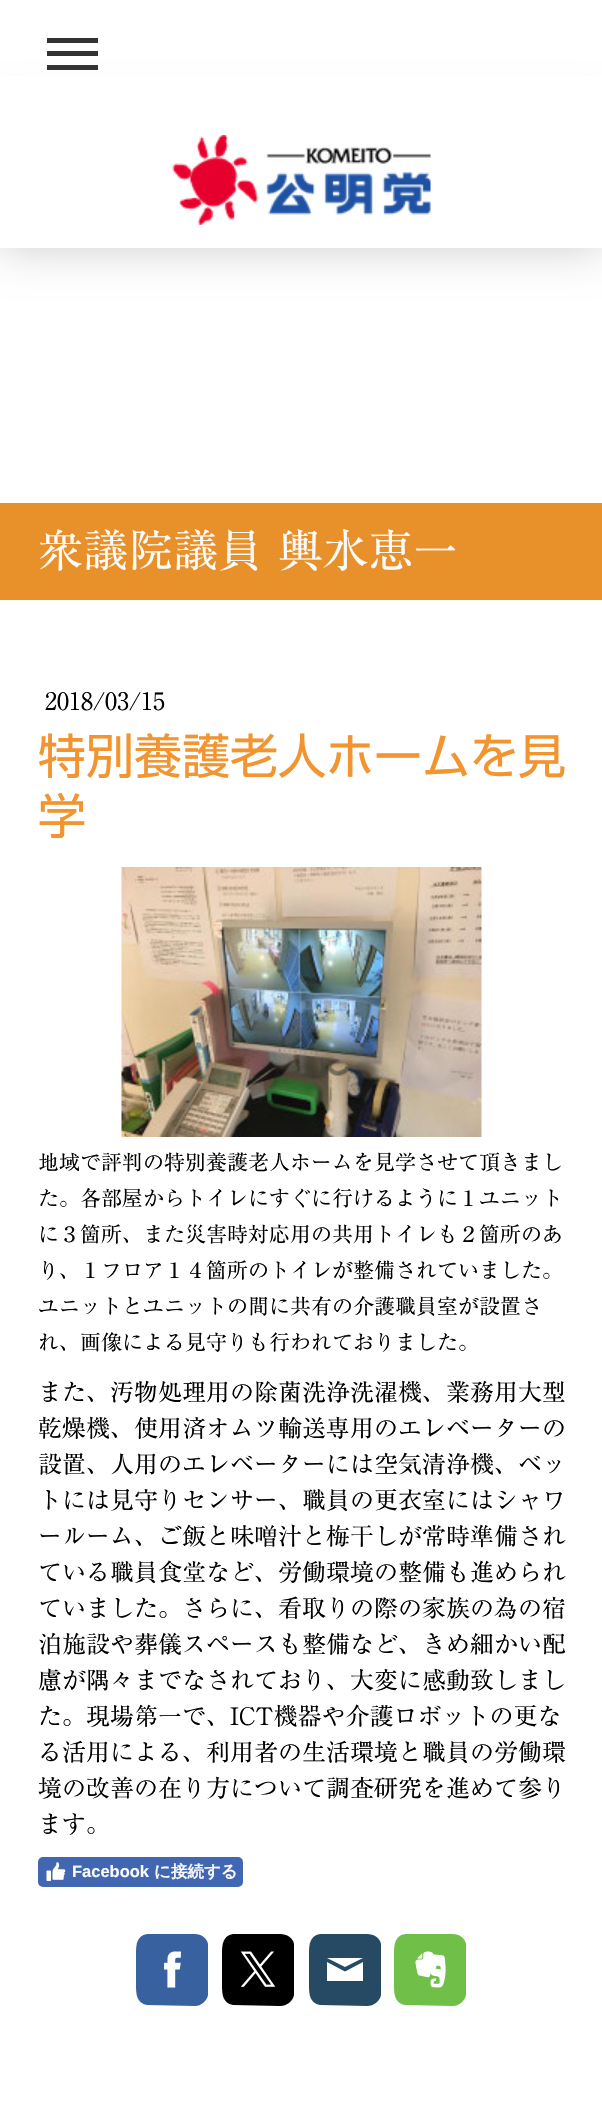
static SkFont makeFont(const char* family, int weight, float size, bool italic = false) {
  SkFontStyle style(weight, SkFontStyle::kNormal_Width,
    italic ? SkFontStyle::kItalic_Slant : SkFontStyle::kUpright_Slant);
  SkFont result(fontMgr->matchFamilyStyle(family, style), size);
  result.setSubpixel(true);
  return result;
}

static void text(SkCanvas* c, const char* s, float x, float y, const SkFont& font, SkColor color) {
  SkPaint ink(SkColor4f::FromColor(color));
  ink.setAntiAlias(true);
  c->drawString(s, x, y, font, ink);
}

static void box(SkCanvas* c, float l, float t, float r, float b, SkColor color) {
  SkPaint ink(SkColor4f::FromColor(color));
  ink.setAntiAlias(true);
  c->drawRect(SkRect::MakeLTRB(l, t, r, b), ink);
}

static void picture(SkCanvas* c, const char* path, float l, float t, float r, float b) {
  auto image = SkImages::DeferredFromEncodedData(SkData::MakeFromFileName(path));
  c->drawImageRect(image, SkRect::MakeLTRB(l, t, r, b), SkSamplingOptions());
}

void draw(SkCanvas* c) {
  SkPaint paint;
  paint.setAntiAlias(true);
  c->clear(0xffffffff);
  paint.setColor(0x33000000);
  paint.setMaskFilter(SkMaskFilter::MakeBlur(kNormal_SkBlurStyle, 22.5f));
  c->drawRect(SkRect::MakeLTRB(0, 113, 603, 248), paint);
  paint.setMaskFilter(nullptr);
  box(c, 47, 51, 98, 56, 0xff333333);
  box(c, 47, 38, 98, 43, 0xff333333);
  box(c, 47, 65, 98, 70, 0xff333333);
  box(c, 0, 76, 602, 248, 0xffffffff);
  picture(c, "img_01.png", 172, 135, 431, 225);
  box(c, 0, 503, 602, 600, 0xffe8912a);
  SkFont face1 = makeFont("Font", 400, 45);
  text(c, "衆議院議員 輿水恵一", 38, 567, face1, 0xfffafafa);
  SkFont face2 = makeFont("Font", 400, 24);
  text(c, "2018/03/15", 45, 710, face2, 0xff000000);
  SkFont face3 = makeFont("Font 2", 400, 48);
  text(c, "特別養護老人ホームを見", 38, 774, face3, 0xfff29530);
  text(c, "学", 38, 834, face3, 0xfff29530);
  picture(c, "img_02.png", 121, 867, 482, 1137);
  SkFont face4 = makeFont("Font", 400, 21);
  text(c, "地域で評判の特別養護老人ホームを見学させて頂きまし", 38, 1170, face4, 0xff000000);
  text(c, "た。各部屋からトイレにすぐに行けるように１ユニット", 38, 1206, face4, 0xff000000);
  text(c, "に３箇所、また災害時対応用の共用トイレも２箇所のあ", 38, 1242, face4, 0xff000000);
  text(c, "り、１フロア１４箇所のトイレが整備されていました。", 38, 1278, face4, 0xff000000);
  text(c, "ユニットとユニットの間に共有の介護職員室が設置さ", 38, 1314, face4, 0xff000000);
  text(c, "れ、画像による見守りも行われておりました。", 38, 1350, face4, 0xff000000);
  text(c, "また、汚物処理用の除菌洗浄洗濯機、業務用大型", 38, 1401, face2, 0xff000000);
  text(c, "乾燥機、使用済オムツ輸送専用のエレベーターの", 38, 1437, face2, 0xff000000);
  text(c, "設置、人用のエレベーターには空気清浄機、ベッ", 38, 1473, face2, 0xff000000);
  text(c, "トには見守りセンサー、職員の更衣室にはシャワ", 38, 1509, face2, 0xff000000);
  text(c, "ールーム、ご飯と味噌汁と梅干しが常時準備され", 38, 1545, face2, 0xff000000);
  text(c, "ている職員食堂など、労働環境の整備も進められ", 38, 1581, face2, 0xff000000);
  text(c, "ていました。さらに、看取りの際の家族の為の宿", 38, 1617, face2, 0xff000000);
  text(c, "泊施設や葬儀スペースも整備など、きめ細かい配", 38, 1653, face2, 0xff000000);
  text(c, "慮が隅々までなされており、大変に感動致しまし", 38, 1689, face2, 0xff000000);
  text(c, "た。現場第一で、ICT機器や介護ロボットの更な", 38, 1725, face2, 0xff000000);
  text(c, "る活用による、利用者の生活環境と職員の労働環", 38, 1761, face2, 0xff000000);
  text(c, "境の改善の在り方について調査研究を進めて参り", 38, 1797, face2, 0xff000000);
  text(c, "ます。", 38, 1833, face2, 0xff000000);
  paint.setColor(0xff4267b2);
  c->drawRoundRect(SkRect::MakeLTRB(39, 1858, 242, 1886), 4, 4, paint);
  paint.setStyle(SkPaint::kStroke_Style);
  paint.setStrokeWidth(2);
  c->drawRoundRect(SkRect::MakeLTRB(39, 1858, 242, 1886), 4, 4, paint);
  picture(c, "img_03.png", 46, 1862, 66, 1881);
  SkFont face5 = makeFont("Liberation Sans", 700, 16.5f);
  text(c, "Facebook", 72, 1877, face5, 0xfffafafa);
  SkFont face6 = makeFont("WenQuanYi Zen Hei", 700, 16.5f);
  text(c, "に接続する", 154, 1877, face6, 0xfffafafa);
  paint.setStyle(SkPaint::kFill_Style);
  paint.setColor(0xff38619f);
  c->drawPath(SkPathBuilder().moveTo(195, 2006).lineTo(147, 2005).cubicTo(136, 2003, 136, 1993, 136, 1984).lineTo(136, 1955).cubicTo(136, 1946, 136, 1936, 147, 1934).lineTo(195, 1934).cubicTo(201, 1934, 207, 1938, 208, 1944).lineTo(208, 1995).cubicTo(207, 2001, 201, 2006, 195, 2006).close().detach(), paint);
  picture(c, "img_04.png", 164, 1951, 181, 1988);
  paint.setColor(0xff000000);
  c->drawPath(SkPathBuilder().moveTo(280, 2006).lineTo(233, 2005).cubicTo(222, 2003, 222, 1993, 222, 1984).lineTo(222, 1955).cubicTo(222, 1946, 222, 1936, 233, 1934).lineTo(280, 1934).cubicTo(287, 1934, 293, 1938, 294, 1944).lineTo(294, 1995).cubicTo(293, 2001, 287, 2006, 280, 2006).close().detach(), paint);
  picture(c, "img_05.png", 240, 1951, 276, 1987);
  paint.setColor(0xff264a64);
  c->drawPath(SkPathBuilder().moveTo(367, 2006).lineTo(320, 2005).cubicTo(309, 2003, 309, 1993, 309, 1984).lineTo(309, 1955).cubicTo(309, 1946, 309, 1936, 320, 1934).lineTo(367, 1934).cubicTo(374, 1934, 380, 1938, 381, 1944).lineTo(381, 1995).cubicTo(380, 2001, 374, 2006, 367, 2006).close().detach(), paint);
  paint.setColor(0xffffffff);
  c->drawPath(SkPathBuilder().moveTo(363, 1981).lineTo(327, 1981).lineTo(327, 1962).lineTo(345, 1971.5f).lineTo(363, 1962).close().moveTo(363, 1958).lineTo(327, 1958).lineTo(345, 1967).close().detach(), paint);
  paint.setColor(0xff6fbf49);
  c->drawPath(SkPathBuilder().moveTo(453, 2006).lineTo(405, 2005).cubicTo(394, 2003, 394, 1993, 394, 1984).lineTo(394, 1955).cubicTo(394, 1946, 394, 1936, 405, 1934).lineTo(453, 1934).cubicTo(459, 1934, 465, 1938, 466, 1944).lineTo(466, 1995).cubicTo(465, 2001, 459, 2006, 453, 2006).close().detach(), paint);
  picture(c, "img_06.png", 415, 1951, 446, 1988);
}
